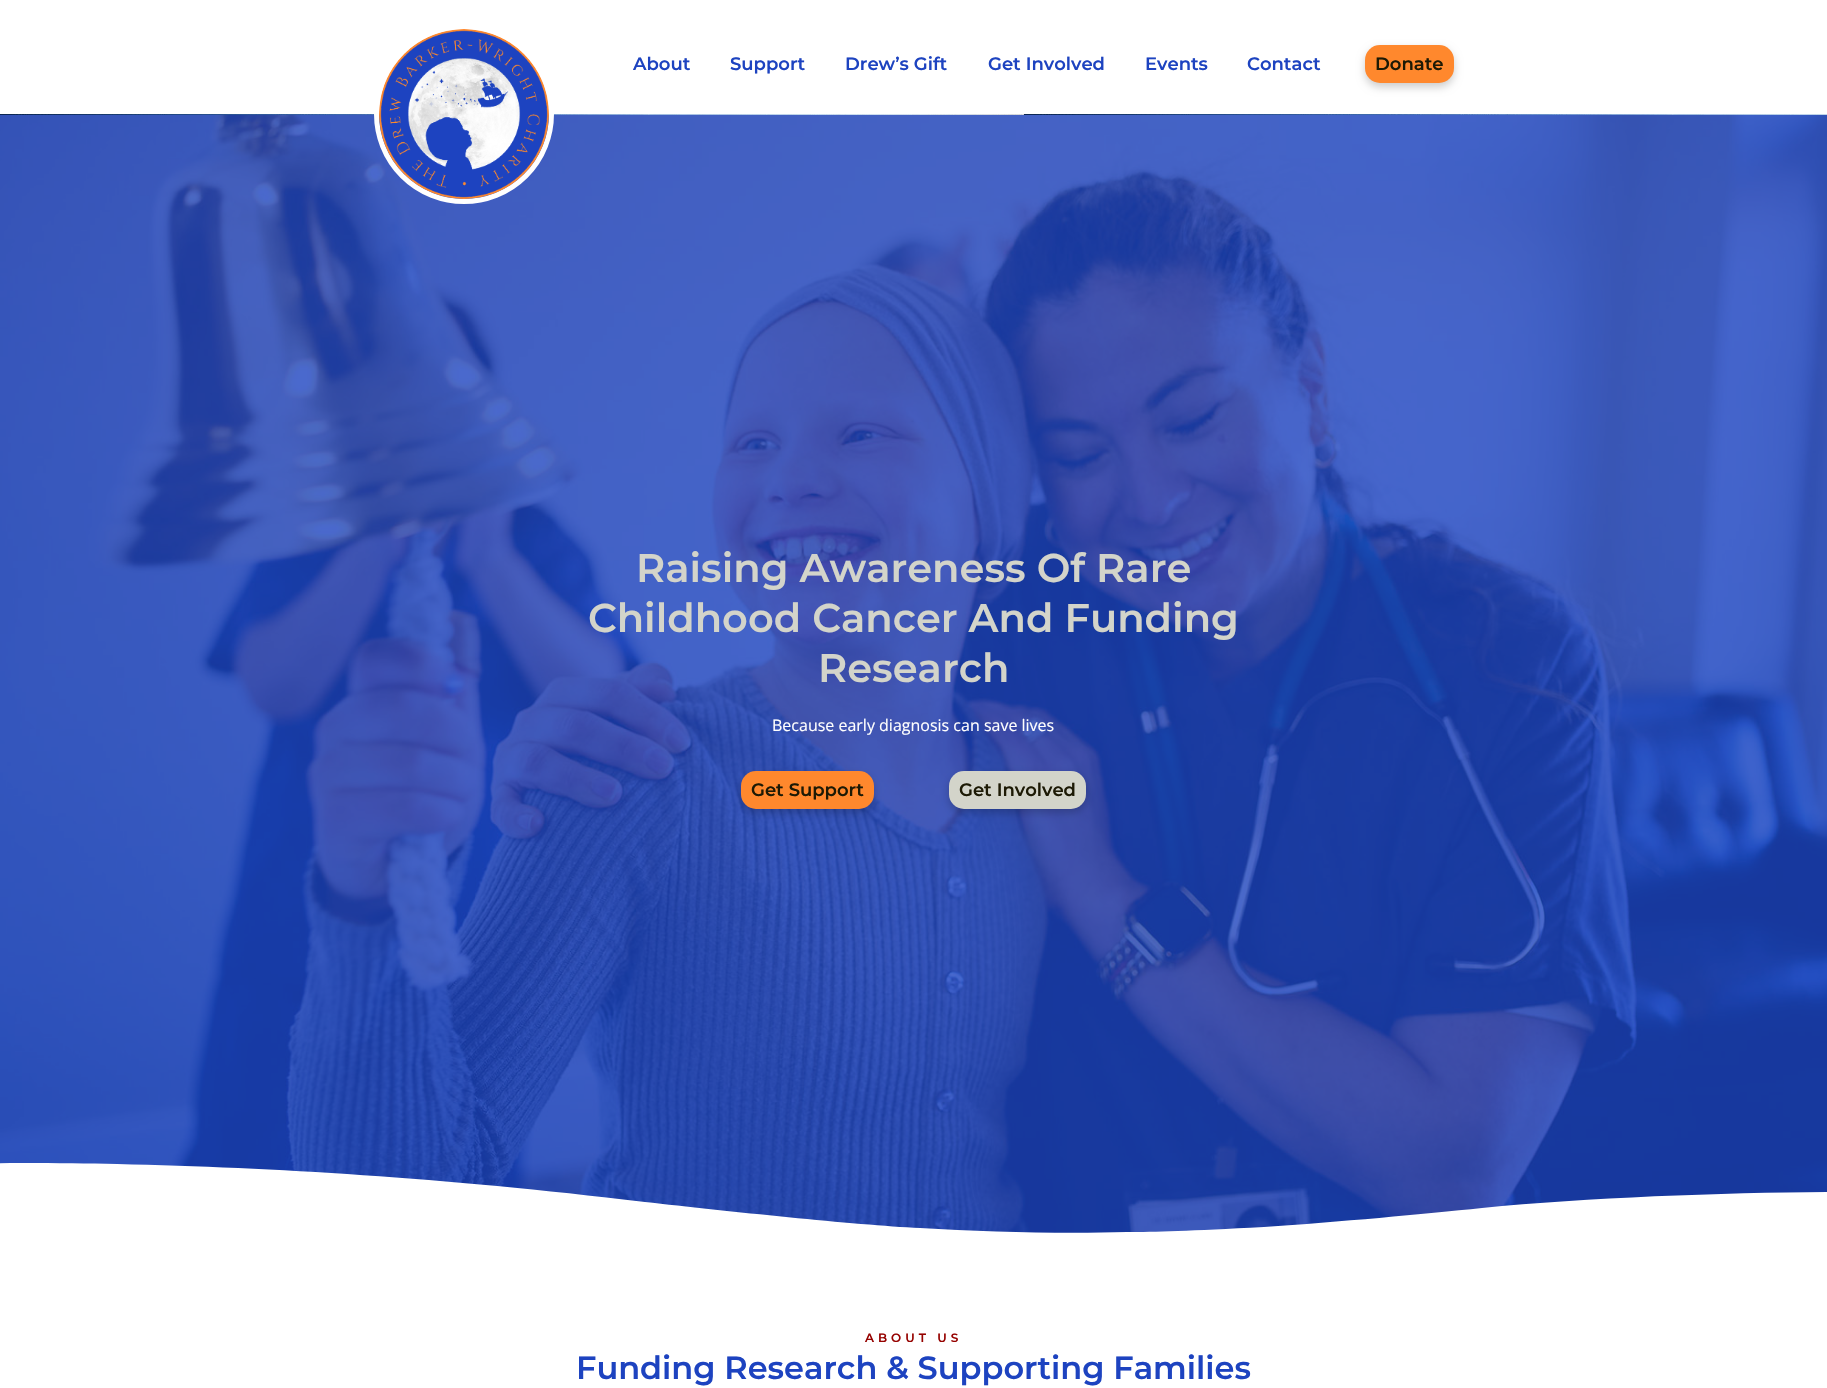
static SkFont makeFont(const char* family, int weight, float size, bool italic = false) {
  SkFontStyle style(weight, SkFontStyle::kNormal_Width,
    italic ? SkFontStyle::kItalic_Slant : SkFontStyle::kUpright_Slant);
  SkFont result(fontMgr->matchFamilyStyle(family, style), size);
  result.setSubpixel(true);
  return result;
}

static void text(SkCanvas* c, const char* s, float x, float y, const SkFont& font, SkColor color) {
  SkPaint ink(SkColor4f::FromColor(color));
  ink.setAntiAlias(true);
  c->drawString(s, x, y, font, ink);
}

static void spacedText(SkCanvas* c, const char* s, float x, float y, const SkFont& font, const SkPaint& ink, float letter, float word) {
  std::vector<SkGlyphID> glyphs(font.countText(s, strlen(s), SkTextEncoding::kUTF8));
  std::vector<float> xs(glyphs.size());
  font.textToGlyphs(s, strlen(s), SkTextEncoding::kUTF8, glyphs);
  font.getXPos(glyphs, xs, x);
  float extra = 0;
  for (size_t i = 0; i < glyphs.size(); i++) {
    xs[i] += extra;
    extra += letter + word * (glyphs[i] == font.unicharToGlyph(' '));
  }
  c->drawTextBlob(SkTextBlob::MakeFromPosHGlyphs(glyphs, xs, y, font), 0, 0, ink);
}

static void roundBox(SkCanvas* c, float l, float t, float r, float b, float radius, SkColor color) {
  SkPaint ink(SkColor4f::FromColor(color));
  ink.setAntiAlias(true);
  c->drawRoundRect(SkRect::MakeLTRB(l, t, r, b), radius, radius, ink);
}

static void picture(SkCanvas* c, const char* path, float l, float t, float r, float b) {
  auto image = SkImages::DeferredFromEncodedData(SkData::MakeFromFileName(path));
  c->drawImageRect(image, SkRect::MakeLTRB(l, t, r, b), SkSamplingOptions());
}

void draw(SkCanvas* c) {
  SkPaint paint;
  paint.setAntiAlias(true);
  c->clear(0xffffffff);
  picture(c, "img_02.png", 0, 114, 1827, 115);
  picture(c, "img_03.png", 0, 115, 1827, 1233);
  paint.setStyle(SkPaint::kStroke_Style);
  paint.setStrokeWidth(5);
  paint.setColor(0xffffffff);
  c->drawCircle(464, 114, 87.5f, paint);
  picture(c, "img_01.png", 379, 29, 549, 199);
  SkFont face1 = makeFont("Montserrat", 600, 18);
  text(c, "About", 633, 70, face1, 0xff1d43c0);
  text(c, "Support", 730, 70, face1, 0xff1d43c0);
  text(c, "Drew’s Gift", 845, 70, face1, 0xff1d43c0);
  text(c, "Get Involved", 988, 70, face1, 0xff1d43c0);
  text(c, "Events", 1145, 70, face1, 0xff1d43c0);
  text(c, "Contact", 1247, 70, face1, 0xff1d43c0);
  paint.setStyle(SkPaint::kFill_Style);
  paint.setColor(0x33000000);
  paint.setMaskFilter(SkMaskFilter::MakeBlur(kNormal_SkBlurStyle, 4));
  c->drawRoundRect(SkRect::MakeLTRB(1365, 49, 1454, 87), 15, 15, paint);
  paint.setMaskFilter(nullptr);
  roundBox(c, 1365, 45, 1454, 83, 15, 0xffff882d);
  text(c, "Donate", 1375, 70, face1, 0xff1d1a05);
  SkFont face2 = makeFont("Montserrat", 600, 40);
  text(c, "Raising Awareness Of Rare", 636, 582, face2, 0xffd3d4ca);
  text(c, "Childhood Cancer And Funding", 588, 632, face2, 0xffd3d4ca);
  text(c, "Research", 818, 682, face2, 0xffd3d4ca);
  SkFont face3 = makeFont("Open Sans", 400, 16);
  text(c, "Because early diagnosis can save lives", 772, 731, face3, 0xffffffff);
  paint.setMaskFilter(SkMaskFilter::MakeBlur(kNormal_SkBlurStyle, 4));
  c->drawRoundRect(SkRect::MakeLTRB(741, 775, 874, 813), 15, 15, paint);
  paint.setMaskFilter(nullptr);
  roundBox(c, 741, 771, 874, 809, 15, 0xffff882d);
  text(c, "Get Support", 751, 796, face1, 0xff1d1a05);
  paint.setMaskFilter(SkMaskFilter::MakeBlur(kNormal_SkBlurStyle, 4));
  c->drawRoundRect(SkRect::MakeLTRB(949, 775, 1086, 813), 15, 15, paint);
  paint.setMaskFilter(nullptr);
  roundBox(c, 949, 771, 1086, 809, 15, 0xffd3d4ca);
  text(c, "Get Involved", 959, 796, face1, 0xff1d1a05);
  paint.setColor(0xffffffff);
  c->drawPath(SkPathBuilder().moveTo(1127, 1232).cubicTo(1065, 1234, 986, 1232, 920, 1228).cubicTo(855, 1225, 726, 1211, 645, 1202).cubicTo(437, 1177, 278, 1168, 117, 1164).cubicTo(52, 1163, -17, 1162, -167, 1166).cubicTo(-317, 1171, -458, 1185, -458, 1185).lineTo(-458, 1237).lineTo(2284, 1237).lineTo(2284, 1214).cubicTo(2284, 1214, 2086, 1190, 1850, 1192).cubicTo(1742, 1192, 1595, 1197, 1482, 1208).cubicTo(1424, 1214, 1339, 1222, 1264, 1227).cubicTo(1189, 1231, 1155, 1232, 1127, 1232).close().detach(), paint);
  SkFont face4 = makeFont("Montserrat", 600, 12);
  paint.setColor(0xff960200);
  spacedText(c, "ABOUT US", 865, 1342, face4, paint, 4, 0);
  SkFont face5 = makeFont("Montserrat", 600, 32);
  text(c, "Funding Research & Supporting Families", 576, 1379, face5, 0xff1d43c0);
}
